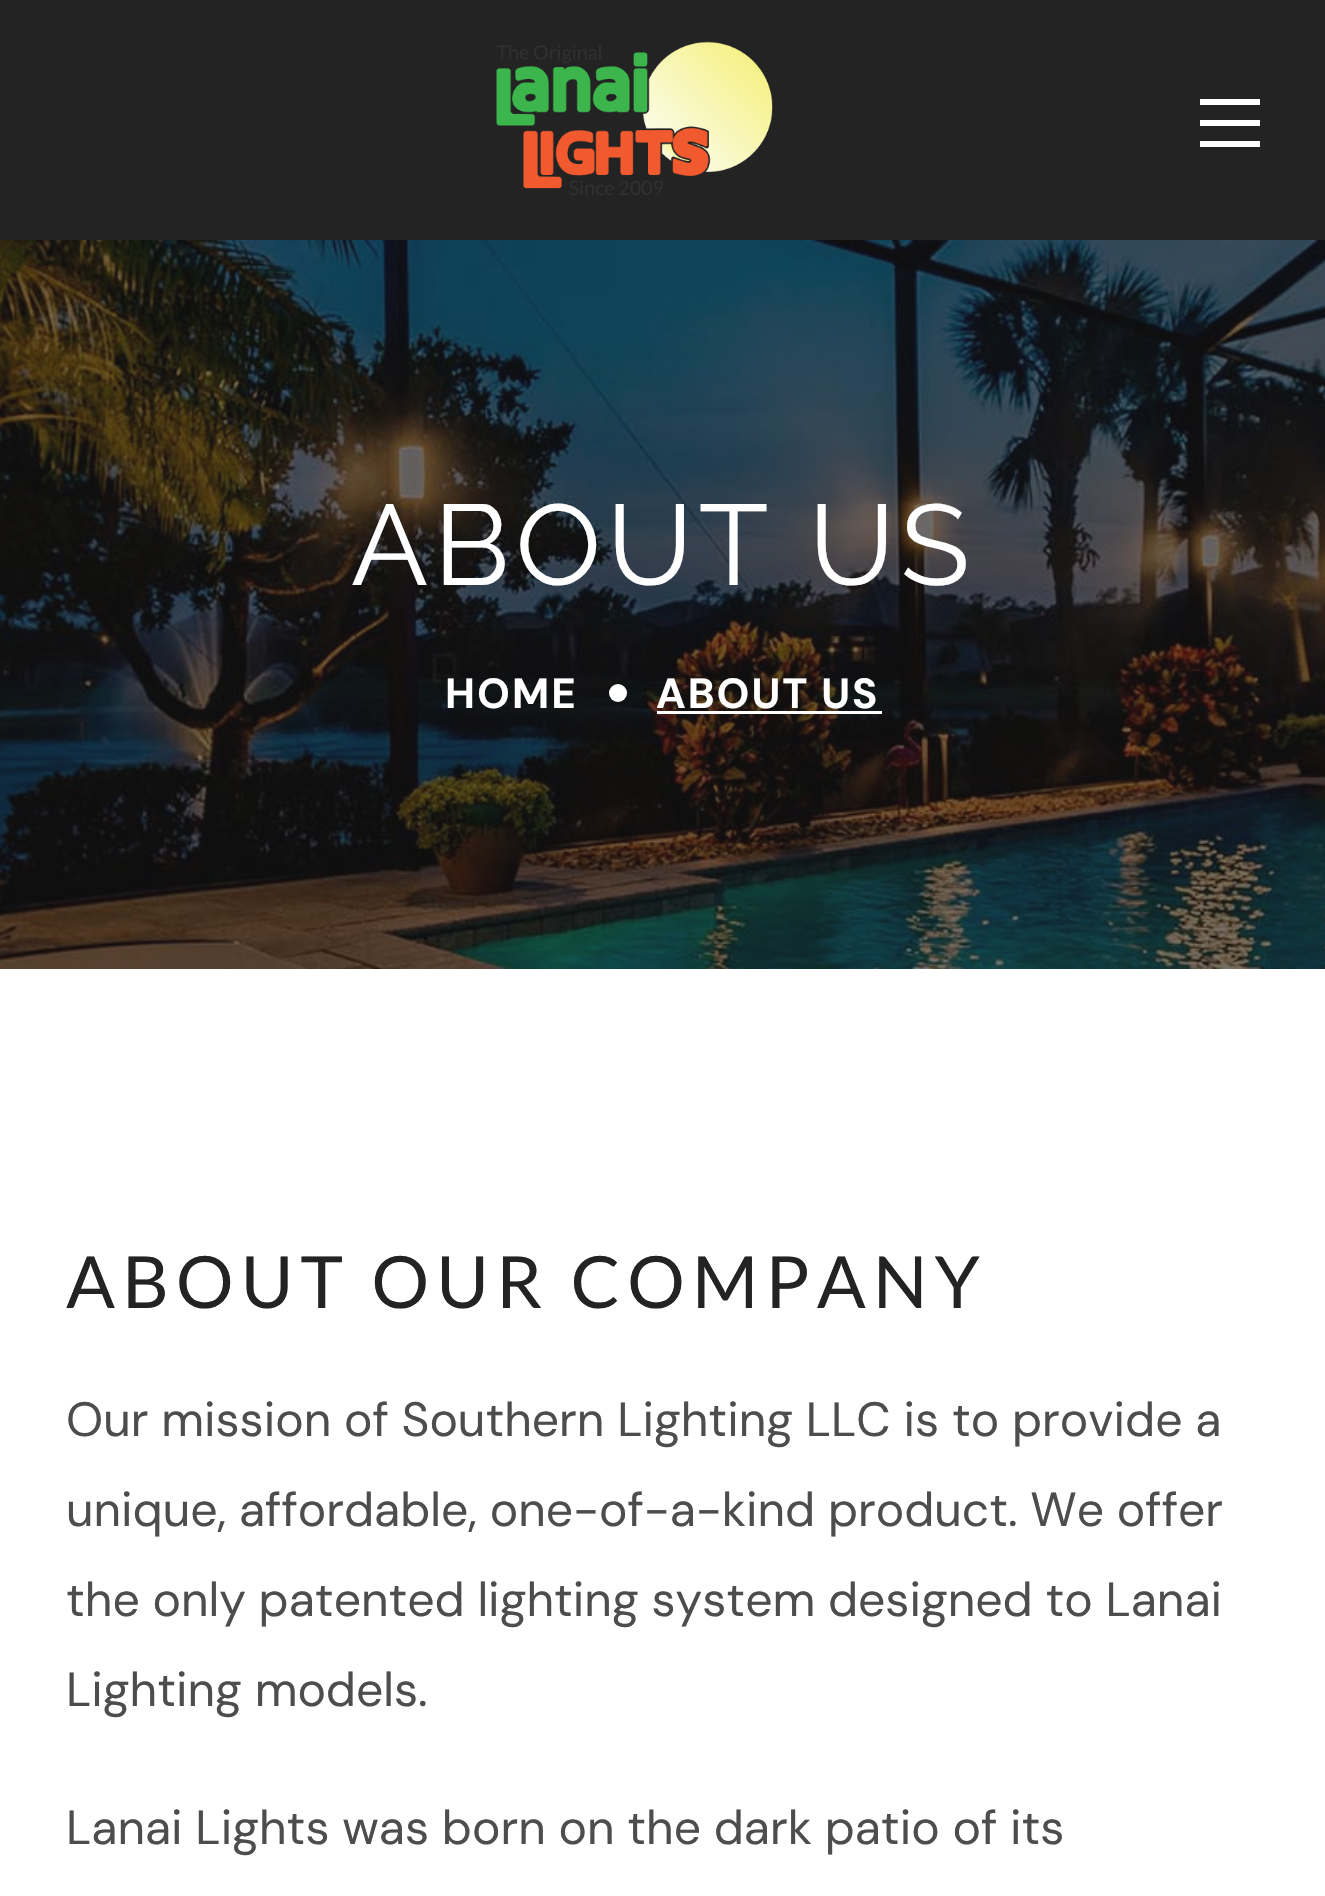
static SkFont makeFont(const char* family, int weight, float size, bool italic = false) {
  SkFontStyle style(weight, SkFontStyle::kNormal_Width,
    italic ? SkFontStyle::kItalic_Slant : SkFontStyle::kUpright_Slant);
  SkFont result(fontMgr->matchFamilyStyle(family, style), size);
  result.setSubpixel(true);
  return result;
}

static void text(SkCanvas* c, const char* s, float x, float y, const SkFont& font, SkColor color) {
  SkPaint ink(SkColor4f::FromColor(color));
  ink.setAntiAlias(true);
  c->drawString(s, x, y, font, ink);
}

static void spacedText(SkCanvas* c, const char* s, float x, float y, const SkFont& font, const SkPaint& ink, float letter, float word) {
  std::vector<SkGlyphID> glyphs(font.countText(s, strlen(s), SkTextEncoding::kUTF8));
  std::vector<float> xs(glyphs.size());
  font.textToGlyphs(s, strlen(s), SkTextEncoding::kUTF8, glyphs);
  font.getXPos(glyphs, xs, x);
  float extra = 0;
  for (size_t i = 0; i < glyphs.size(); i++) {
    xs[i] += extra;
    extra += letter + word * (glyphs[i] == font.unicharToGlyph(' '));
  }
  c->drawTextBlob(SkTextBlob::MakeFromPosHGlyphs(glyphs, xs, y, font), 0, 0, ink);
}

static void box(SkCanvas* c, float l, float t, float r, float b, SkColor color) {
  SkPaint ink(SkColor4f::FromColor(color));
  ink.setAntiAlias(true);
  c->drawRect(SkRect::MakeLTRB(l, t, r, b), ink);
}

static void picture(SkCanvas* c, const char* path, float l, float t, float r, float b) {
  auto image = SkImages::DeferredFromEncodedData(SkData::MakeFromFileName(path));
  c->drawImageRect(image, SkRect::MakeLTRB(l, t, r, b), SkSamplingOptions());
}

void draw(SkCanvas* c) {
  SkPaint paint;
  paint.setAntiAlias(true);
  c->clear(0xffffffff);
  box(c, 0, 0, 1325, 240, 0xff232323);
  picture(c, "img_01.png", 496, 41, 773, 195);
  box(c, 1200, 99, 1260, 105, 0xffffffff);
  box(c, 1200, 120, 1260, 126, 0xffffffff);
  box(c, 1200, 141, 1260, 147, 0xffffffff);
  picture(c, "img_02.png", 0, 240, 1325, 969);
  SkFont face1 = makeFont("Raleway", 400, 114);
  paint.setColor(0xffffffff);
  spacedText(c, "ABOUT US", 351, 585, face1, paint, 5.75f, 0);
  SkFont face2 = makeFont("DM Sans", 700, 42);
  spacedText(c, "HOME", 445, 708, face2, paint, 2, 0);
  c->drawCircle(618, 693, 9, paint);
  spacedText(c, "ABOUT US", 656, 708, face2, paint, 2, 0);
  box(c, 657, 711, 882, 714, 0xffffffff);
  SkFont face3 = makeFont("Lato", 400, 72);
  paint.setColor(0xff232323);
  spacedText(c, "ABOUT OUR COMPANY", 66, 1308, face3, paint, 7.25f, 0);
  SkFont face4 = makeFont("DM Sans", 400, 48);
  text(c, "Our mission of Southern Lighting LLC is to provide a", 66, 1436, face4, 0xff4d4d4d);
  text(c, "unique, affordable, one-of-a-kind product. We offer", 66, 1526, face4, 0xff4d4d4d);
  text(c, "the only patented lighting system designed to Lanai", 66, 1616, face4, 0xff4d4d4d);
  text(c, "Lighting models.", 66, 1706, face4, 0xff4d4d4d);
  text(c, "Lanai Lights was born on the dark patio of its", 66, 1844, face4, 0xff4d4d4d);
}
